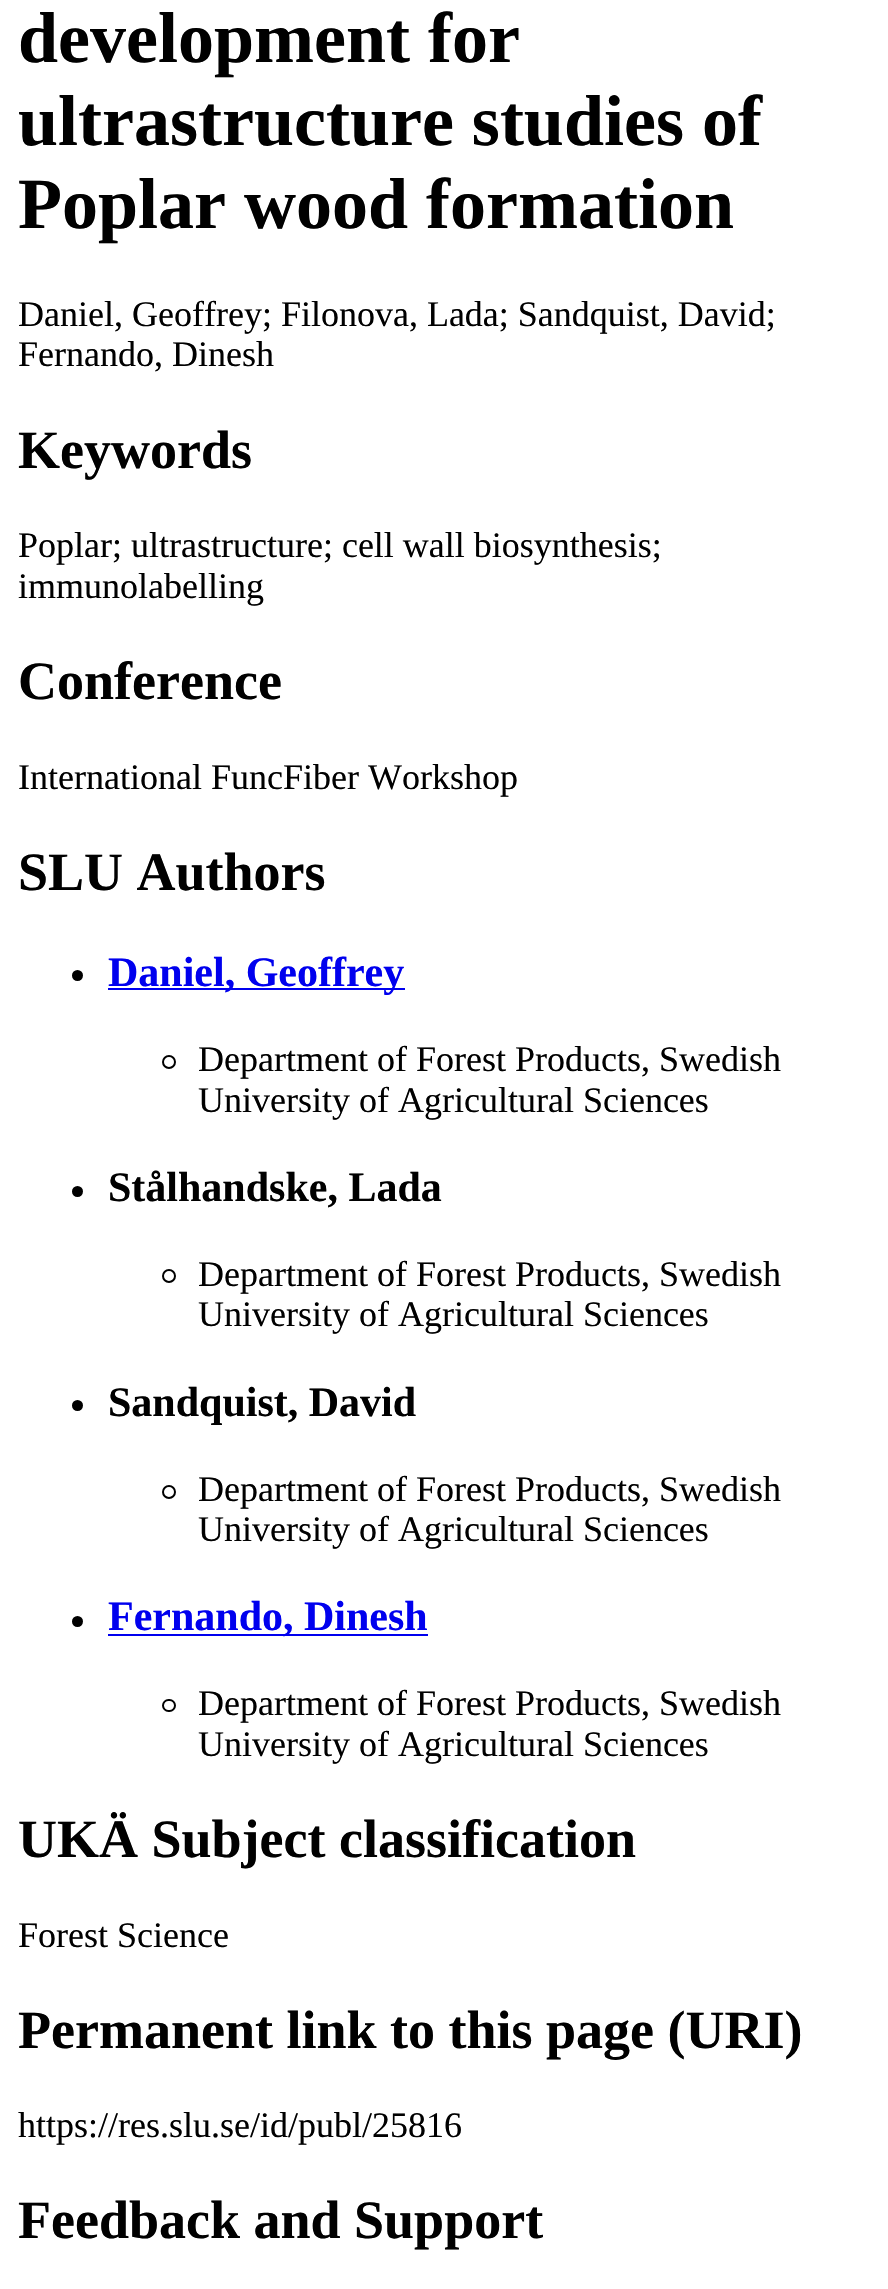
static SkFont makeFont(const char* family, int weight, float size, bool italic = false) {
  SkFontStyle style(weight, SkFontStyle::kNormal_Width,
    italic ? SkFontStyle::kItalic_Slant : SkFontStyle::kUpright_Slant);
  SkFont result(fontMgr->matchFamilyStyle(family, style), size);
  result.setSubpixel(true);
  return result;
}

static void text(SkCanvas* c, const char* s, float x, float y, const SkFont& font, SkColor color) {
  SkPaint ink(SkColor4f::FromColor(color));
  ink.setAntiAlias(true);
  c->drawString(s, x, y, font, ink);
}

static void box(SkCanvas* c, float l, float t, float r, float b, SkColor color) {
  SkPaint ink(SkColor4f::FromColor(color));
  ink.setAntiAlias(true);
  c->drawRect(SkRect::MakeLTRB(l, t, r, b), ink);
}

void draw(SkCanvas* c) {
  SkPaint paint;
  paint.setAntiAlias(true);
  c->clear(0xffffffff);
  SkFont face1 = makeFont("Liberation Serif", 700, 72);
  text(c, "development for", 18, 62, face1, 0xff000000);
  text(c, "ultrastructure studies of", 18, 145, face1, 0xff000000);
  text(c, "Poplar wood formation", 18, 228, face1, 0xff000000);
  SkFont face2 = makeFont("Liberation Serif", 400, 36);
  text(c, "Daniel, Geoffrey; Filonova, Lada; Sandquist, David;", 18, 326, face2, 0xff000000);
  text(c, "Fernando, Dinesh", 18, 366, face2, 0xff000000);
  SkFont face3 = makeFont("Liberation Serif", 700, 54);
  text(c, "Keywords", 18, 468, face3, 0xff000000);
  text(c, "Poplar; ultrastructure; cell wall biosynthesis;", 18, 557, face2, 0xff000000);
  text(c, "immunolabelling", 18, 598, face2, 0xff000000);
  text(c, "Conference", 18, 699, face3, 0xff000000);
  text(c, "International FuncFiber Workshop", 18, 789, face2, 0xff000000);
  text(c, "SLU Authors", 18, 890, face3, 0xff000000);
  paint.setColor(0xff000000);
  c->drawCircle(77.5f, 975.5f, 5.5f, paint);
  box(c, 108, 988, 405, 990, 0xff0000ee);
  SkFont face4 = makeFont("Liberation Serif", 700, 42);
  text(c, "Daniel, Geoffrey", 108, 986, face4, 0xff0000ee);
  paint.setStyle(SkPaint::kStroke_Style);
  paint.setStrokeWidth(2);
  c->drawCircle(169, 1062, 6, paint);
  text(c, "Department of Forest Products, Swedish", 198, 1071, face2, 0xff000000);
  text(c, "University of Agricultural Sciences", 198, 1112, face2, 0xff000000);
  paint.setStyle(SkPaint::kFill_Style);
  c->drawCircle(77.5f, 1191.5f, 5.5f, paint);
  text(c, "Stålhandske, Lada", 108, 1201, face4, 0xff000000);
  paint.setStyle(SkPaint::kStroke_Style);
  c->drawCircle(169, 1276, 6, paint);
  text(c, "Department of Forest Products, Swedish", 198, 1286, face2, 0xff000000);
  text(c, "University of Agricultural Sciences", 198, 1326, face2, 0xff000000);
  paint.setStyle(SkPaint::kFill_Style);
  c->drawCircle(77.5f, 1405.5f, 5.5f, paint);
  text(c, "Sandquist, David", 108, 1416, face4, 0xff000000);
  paint.setStyle(SkPaint::kStroke_Style);
  c->drawCircle(169, 1492, 6, paint);
  text(c, "Department of Forest Products, Swedish", 198, 1501, face2, 0xff000000);
  text(c, "University of Agricultural Sciences", 198, 1541, face2, 0xff000000);
  paint.setStyle(SkPaint::kFill_Style);
  c->drawCircle(77.5f, 1621.5f, 5.5f, paint);
  box(c, 108, 1634, 428, 1636, 0xff0000ee);
  text(c, "Fernando, Dinesh", 108, 1630, face4, 0xff0000ee);
  paint.setStyle(SkPaint::kStroke_Style);
  c->drawRoundRect(SkRect::MakeLTRB(163, 1700, 175, 1711), 5.5f, 5.5f, paint);
  text(c, "Department of Forest Products, Swedish", 198, 1715, face2, 0xff000000);
  text(c, "University of Agricultural Sciences", 198, 1756, face2, 0xff000000);
  text(c, "UKÄ Subject classification", 18, 1857, face3, 0xff000000);
  text(c, "Forest Science", 18, 1947, face2, 0xff000000);
  text(c, "Permanent link to this page (URI)", 18, 2048, face3, 0xff000000);
  text(c, "https://res.slu.se/id/publ/25816", 18, 2137, face2, 0xff000000);
  text(c, "Feedback and Support", 18, 2238, face3, 0xff000000);
}
